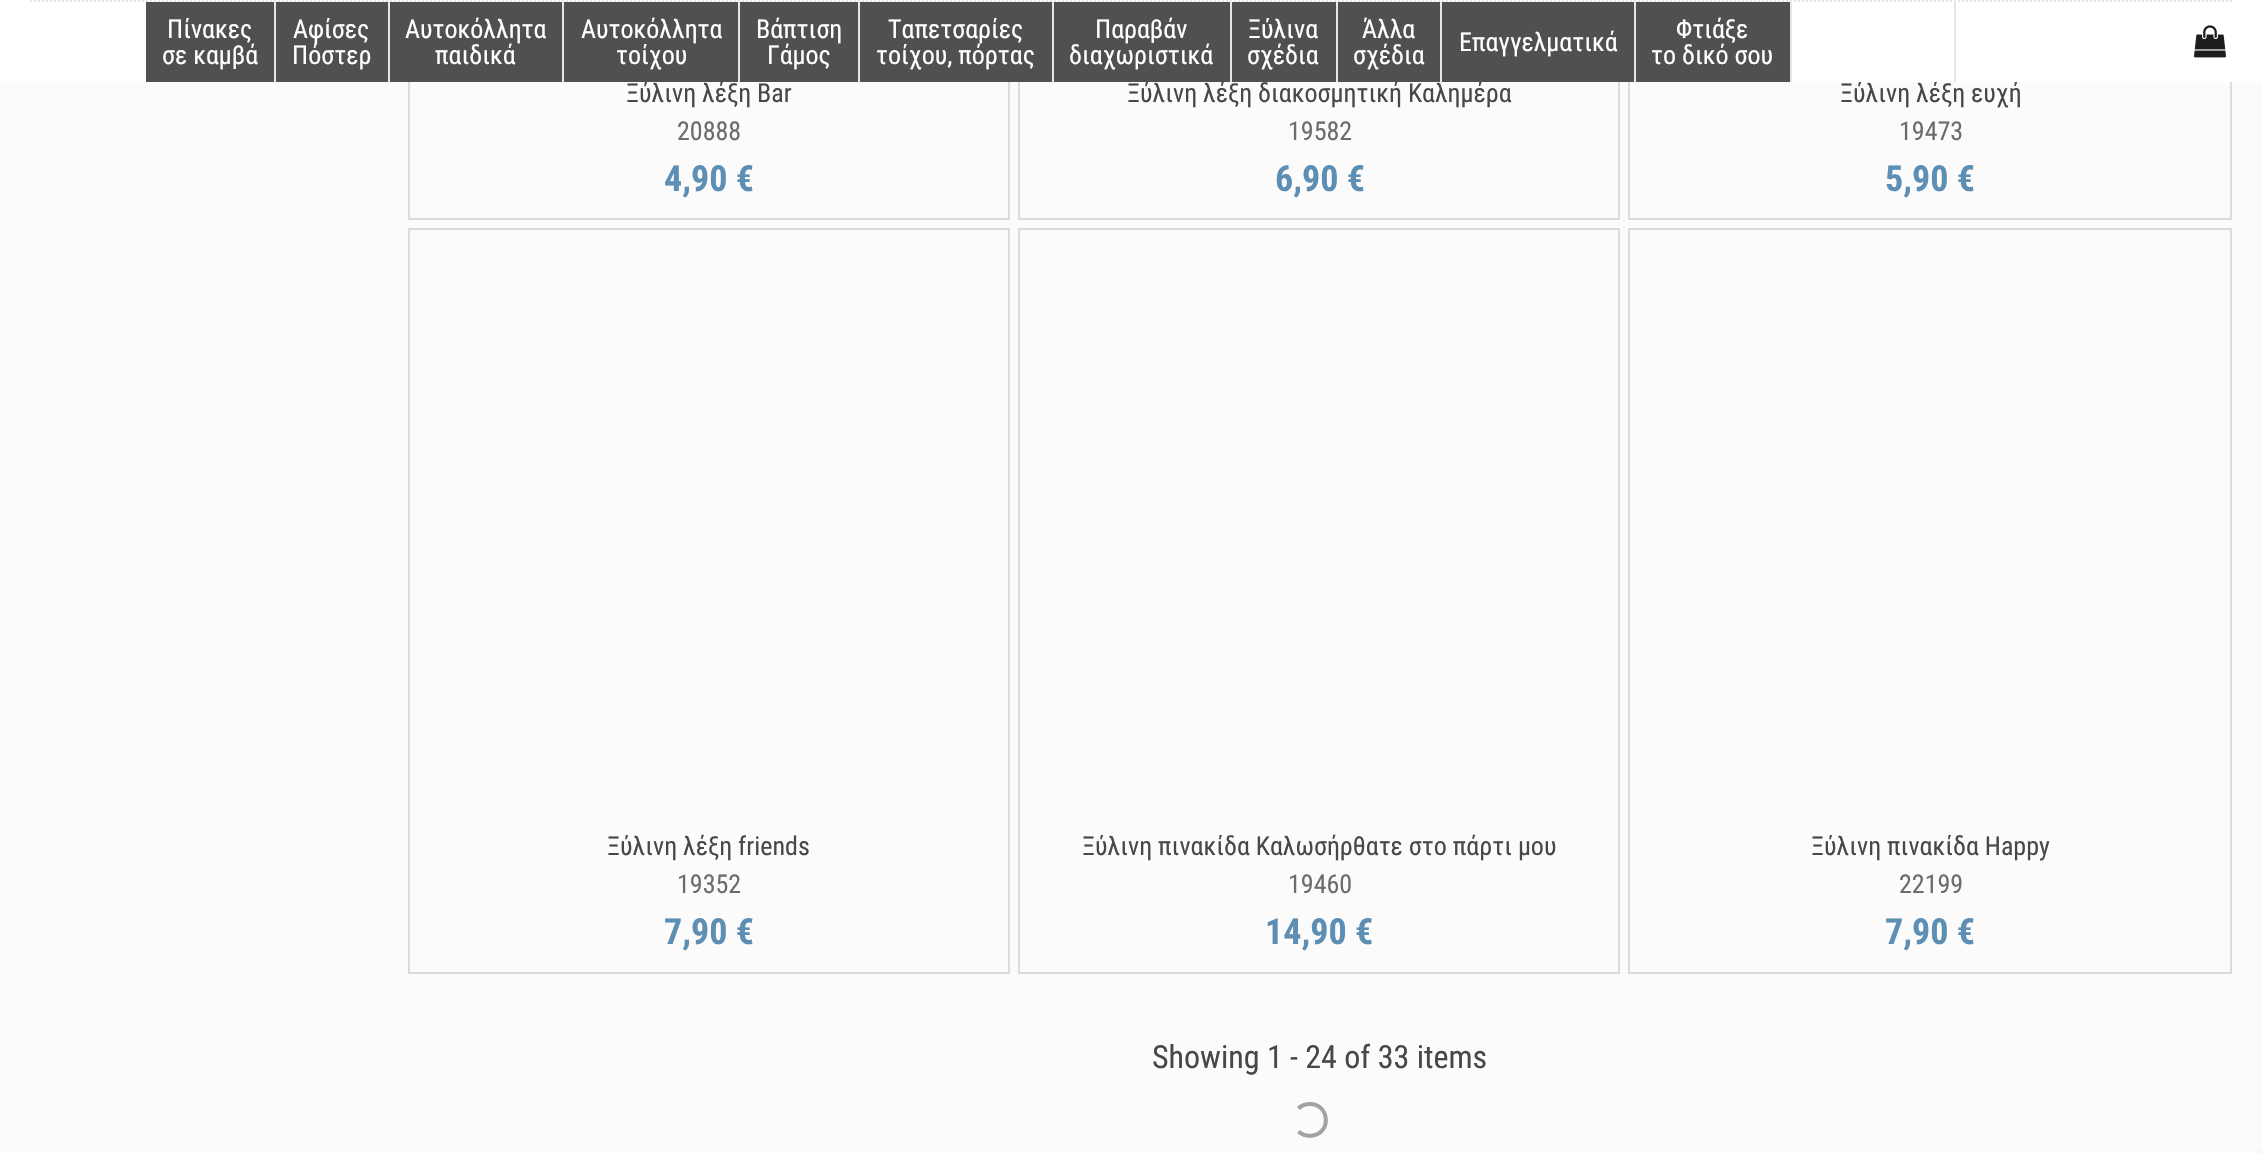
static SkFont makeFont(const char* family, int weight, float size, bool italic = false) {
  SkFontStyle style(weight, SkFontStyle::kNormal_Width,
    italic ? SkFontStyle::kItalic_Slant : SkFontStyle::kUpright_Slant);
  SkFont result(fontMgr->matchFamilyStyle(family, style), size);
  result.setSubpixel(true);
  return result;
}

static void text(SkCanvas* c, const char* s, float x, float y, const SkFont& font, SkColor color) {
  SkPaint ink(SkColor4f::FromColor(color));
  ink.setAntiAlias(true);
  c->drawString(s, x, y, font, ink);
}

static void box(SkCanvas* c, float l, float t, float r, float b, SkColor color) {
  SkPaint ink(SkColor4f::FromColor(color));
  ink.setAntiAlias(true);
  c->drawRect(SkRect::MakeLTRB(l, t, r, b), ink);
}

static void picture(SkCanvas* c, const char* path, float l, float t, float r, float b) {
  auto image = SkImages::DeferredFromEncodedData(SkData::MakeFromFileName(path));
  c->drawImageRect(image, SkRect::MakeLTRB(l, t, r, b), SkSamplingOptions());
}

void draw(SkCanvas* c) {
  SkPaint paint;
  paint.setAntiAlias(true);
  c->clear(0xfffbfbfb);
  paint.setStyle(SkPaint::kStroke_Style);
  paint.setStrokeWidth(2);
  paint.setColor(0xffdbdbdb);
  c->drawRect(SkRect::MakeLTRB(409, -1, 1009, 219), paint);
  SkFont face1 = makeFont("Roboto Condensed", 400, 26);
  text(c, "Ξύλινη λέξη Bar", 626, 102, face1, 0xff484848);
  c->drawRect(SkRect::MakeLTRB(1019, -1, 1619, 219), paint);
  text(c, "Ξύλινη λέξη διακοσμητική Καλημέρα", 1127, 102, face1, 0xff484848);
  c->drawRect(SkRect::MakeLTRB(1629, -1, 2231, 219), paint);
  text(c, "Ξύλινη λέξη ευχή", 1840, 102, face1, 0xff484848);
  box(c, 0, 0, 2262, 82, 0xffffffff);
  paint.setColor(0xffe6e6e6);
  paint.setPathEffect(SkDashPathEffect::Make({{2, 2}}, 0));
  c->drawPath(SkPathBuilder().moveTo(30, 1).lineTo(2232, 1).detach(), paint);
  paint.setPathEffect(nullptr);
  box(c, 146, 2, 274, 82, 0xff505050);
  text(c, "Πίνακες", 167, 38, face1, 0xffffffff);
  text(c, "σε καμβά", 162, 64, face1, 0xffffffff);
  box(c, 276, 2, 388, 82, 0xff505050);
  box(c, 274, 2, 276, 82, 0xffe6e6e6);
  text(c, "Αφίσες", 293, 38, face1, 0xffffffff);
  text(c, "Πόστερ", 292, 64, face1, 0xffffffff);
  box(c, 390, 2, 562, 82, 0xff505050);
  box(c, 388, 2, 390, 82, 0xffe6e6e6);
  text(c, "Αυτοκόλλητα", 405, 38, face1, 0xffffffff);
  text(c, "παιδικά", 435, 64, face1, 0xffffffff);
  box(c, 564, 2, 738, 82, 0xff505050);
  box(c, 562, 2, 564, 82, 0xffe6e6e6);
  text(c, "Αυτοκόλλητα", 581, 38, face1, 0xffffffff);
  text(c, "τοίχου", 616, 64, face1, 0xffffffff);
  box(c, 740, 2, 858, 82, 0xff505050);
  box(c, 738, 2, 740, 82, 0xffe6e6e6);
  text(c, "Βάπτιση", 756, 38, face1, 0xffffffff);
  text(c, "Γάμος", 767, 64, face1, 0xffffffff);
  box(c, 860, 2, 1052, 82, 0xff505050);
  box(c, 858, 2, 860, 82, 0xffe6e6e6);
  text(c, "Ταπετσαρίες", 888, 38, face1, 0xffffffff);
  text(c, "τοίχου, πόρτας", 876, 64, face1, 0xffffffff);
  box(c, 1054, 2, 1230, 82, 0xff505050);
  box(c, 1052, 2, 1054, 82, 0xffe6e6e6);
  text(c, "Παραβάν", 1095, 38, face1, 0xffffffff);
  text(c, "διαχωριστικά", 1069, 64, face1, 0xffffffff);
  box(c, 1232, 2, 1336, 82, 0xff505050);
  box(c, 1230, 2, 1232, 82, 0xffe6e6e6);
  text(c, "Ξύλινα", 1248, 38, face1, 0xffffffff);
  text(c, "σχέδια", 1247, 64, face1, 0xffffffff);
  box(c, 1338, 2, 1440, 82, 0xff505050);
  box(c, 1336, 2, 1338, 82, 0xffe6e6e6);
  text(c, "Άλλα", 1362, 38, face1, 0xffffffff);
  text(c, "σχέδια", 1353, 64, face1, 0xffffffff);
  box(c, 1442, 2, 1634, 82, 0xff505050);
  box(c, 1440, 2, 1442, 82, 0xffe6e6e6);
  text(c, "Επαγγελματικά", 1459, 51, face1, 0xffffffff);
  box(c, 1636, 2, 1790, 82, 0xff505050);
  box(c, 1634, 2, 1636, 82, 0xffe6e6e6);
  text(c, "Φτιάξε", 1676, 38, face1, 0xffffffff);
  text(c, "το δικό σου", 1651, 64, face1, 0xffffffff);
  box(c, 1790, 2, 1792, 82, 0xffe6e6e6);
  box(c, 1954, 2, 1956, 82, 0xffe6e6e6);
  picture(c, "img_01.png", 2194, 25, 2226, 58);
  text(c, "20888", 677, 140, face1, 0xff6c6c6c);
  SkFont face2 = makeFont("Roboto Condensed", 700, 36);
  text(c, "4,90 €", 664, 191, face2, 0xff5d8eb3);
  text(c, "19582", 1288, 140, face1, 0xff6c6c6c);
  text(c, "6,90 €", 1275, 191, face2, 0xff5d8eb3);
  text(c, "19473", 1899, 140, face1, 0xff6c6c6c);
  text(c, "5,90 €", 1885, 191, face2, 0xff5d8eb3);
  paint.setColor(0xffdbdbdb);
  c->drawRect(SkRect::MakeLTRB(409, 229, 1009, 973), paint);
  text(c, "Ξύλινη λέξη friends", 607, 855, face1, 0xff484848);
  text(c, "19352", 677, 893, face1, 0xff6c6c6c);
  text(c, "7,90 €", 664, 944, face2, 0xff5d8eb3);
  c->drawRect(SkRect::MakeLTRB(1019, 229, 1619, 973), paint);
  text(c, "Ξύλινη πινακίδα Καλωσήρθατε στο πάρτι μου", 1082, 855, face1, 0xff484848);
  text(c, "19460", 1288, 893, face1, 0xff6c6c6c);
  text(c, "14,90 €", 1265, 944, face2, 0xff5d8eb3);
  c->drawRect(SkRect::MakeLTRB(1629, 229, 2231, 973), paint);
  text(c, "Ξύλινη πινακίδα Happy", 1811, 855, face1, 0xff484848);
  text(c, "22199", 1899, 893, face1, 0xff6c6c6c);
  text(c, "7,90 €", 1885, 944, face2, 0xff5d8eb3);
  SkFont face3 = makeFont("Roboto Condensed", 400, 32);
  text(c, "Showing 1 - 24 of 33 items", 1152, 1068, face3, 0xff484848);
  paint.setStrokeWidth(4);
  paint.setColor(0xffa2a2a2);
  c->drawPath(SkPathBuilder().moveTo(1298.5f, 1108.5f).cubicTo(1301.5f, 1105.5f, 1306, 1104, 1310, 1104).cubicTo(1329, 1104, 1332, 1132, 1313, 1135.5f).cubicTo(1308, 1136.5f, 1302.5f, 1135, 1298.5f, 1131.5f).detach(), paint);
  box(c, 2258, 1150, 2262, 1153, 0xfff5f5f5);
}
